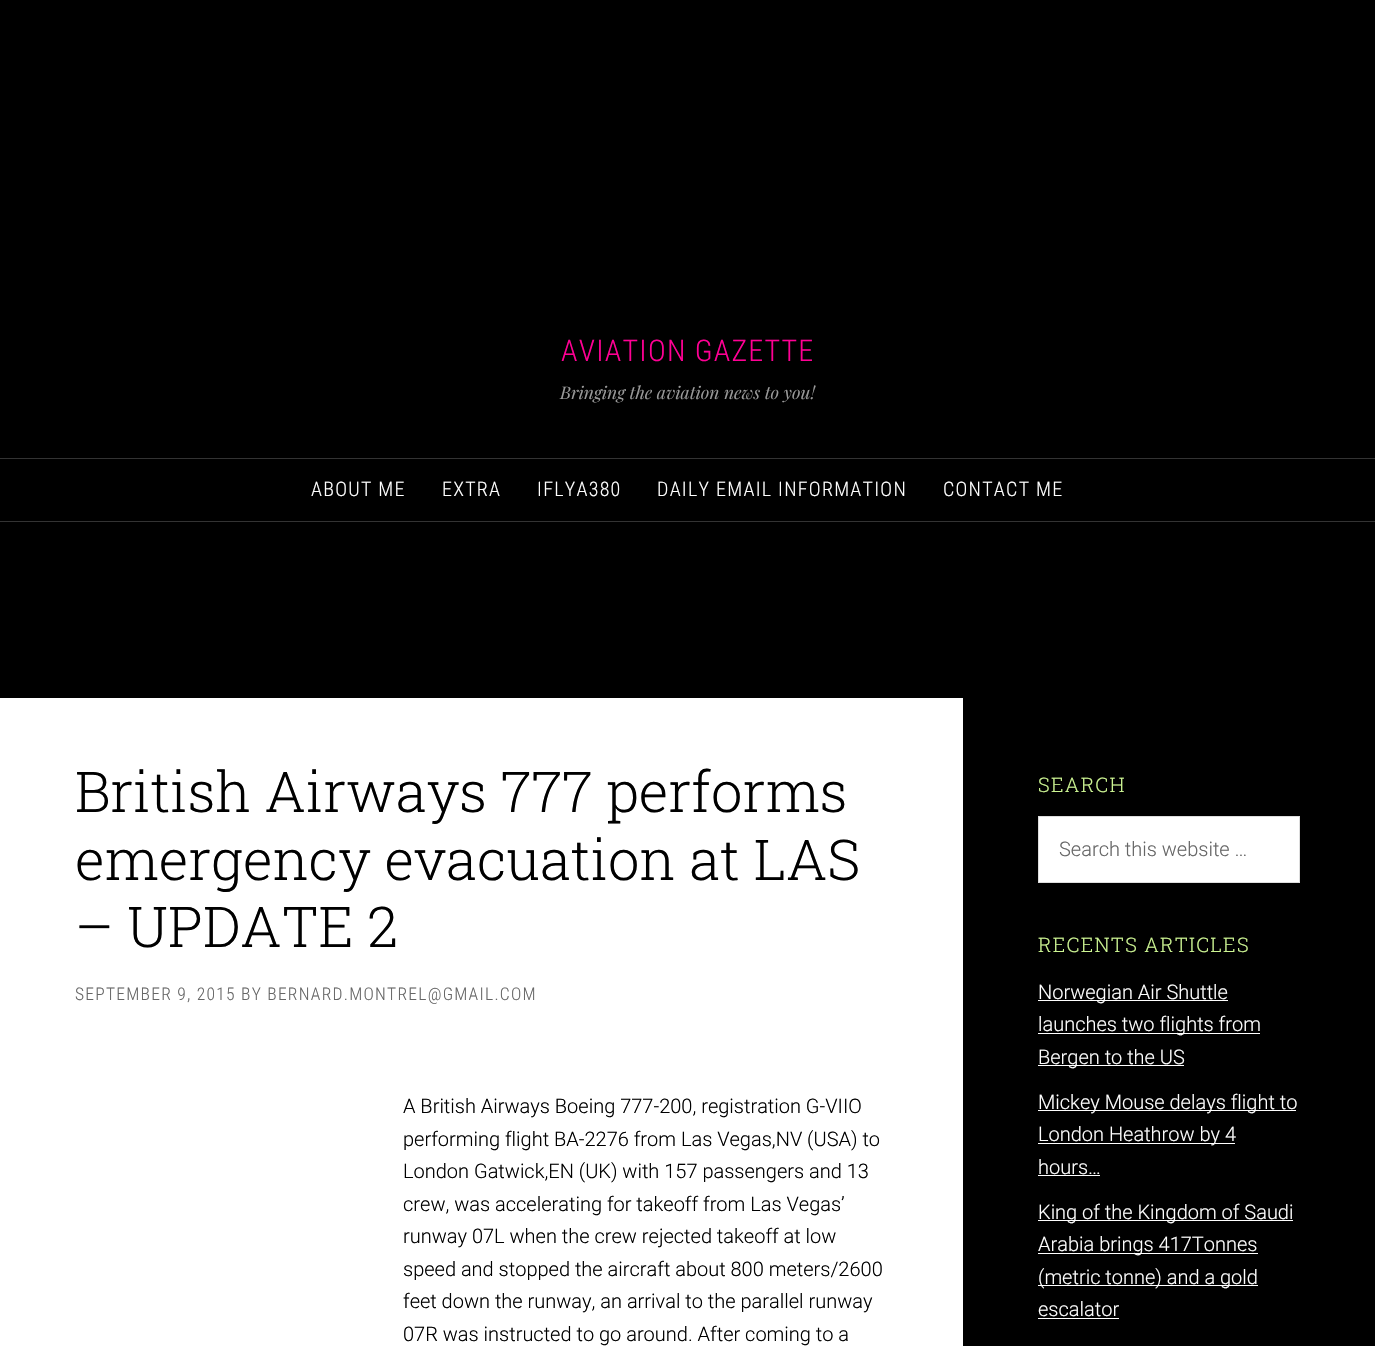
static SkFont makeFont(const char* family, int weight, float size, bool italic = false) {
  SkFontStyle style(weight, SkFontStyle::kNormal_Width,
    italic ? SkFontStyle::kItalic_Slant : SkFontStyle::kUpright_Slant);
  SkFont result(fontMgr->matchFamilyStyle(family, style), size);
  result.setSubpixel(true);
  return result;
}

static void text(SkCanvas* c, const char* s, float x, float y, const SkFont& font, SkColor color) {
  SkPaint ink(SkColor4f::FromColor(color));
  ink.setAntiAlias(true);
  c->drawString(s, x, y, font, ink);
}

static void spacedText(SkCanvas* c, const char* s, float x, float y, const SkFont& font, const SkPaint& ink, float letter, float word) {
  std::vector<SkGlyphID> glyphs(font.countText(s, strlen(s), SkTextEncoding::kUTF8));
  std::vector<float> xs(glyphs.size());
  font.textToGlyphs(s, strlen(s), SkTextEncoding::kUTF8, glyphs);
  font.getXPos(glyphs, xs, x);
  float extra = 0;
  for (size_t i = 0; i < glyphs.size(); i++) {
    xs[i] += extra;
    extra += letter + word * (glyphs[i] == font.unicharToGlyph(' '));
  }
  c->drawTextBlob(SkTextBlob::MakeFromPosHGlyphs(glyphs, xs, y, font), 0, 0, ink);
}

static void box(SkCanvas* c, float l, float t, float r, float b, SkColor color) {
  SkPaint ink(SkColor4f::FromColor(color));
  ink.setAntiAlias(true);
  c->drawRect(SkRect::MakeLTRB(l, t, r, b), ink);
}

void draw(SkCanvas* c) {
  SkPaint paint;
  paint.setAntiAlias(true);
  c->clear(0xff000000);
  SkFont face1 = makeFont("Roboto Condensed", 300, 30);
  paint.setColor(0xffff0094);
  spacedText(c, "AVIATION GAZETTE", 561, 361, face1, paint, 1.25f, 0);
  SkFont face2 = makeFont("Playfair Display", 400, 17.5f, true);
  text(c, "Bringing the aviation news to you!", 560, 399, face2, 0xff999999);
  box(c, 0, 458, 1375, 459, 0xff333333);
  box(c, 0, 521, 1375, 522, 0xff333333);
  SkFont face3 = makeFont("Roboto Condensed", 300, 20);
  paint.setColor(0xffffffff);
  spacedText(c, "ABOUT ME", 311, 496, face3, paint, 1.25f, 0);
  spacedText(c, "EXTRA", 442, 496, face3, paint, 1.25f, 0);
  spacedText(c, "IFLYA380", 537, 496, face3, paint, 1.25f, 0);
  spacedText(c, "DAILY EMAIL INFORMATION", 657, 496, face3, paint, 1.25f, 0);
  spacedText(c, "CONTACT ME", 943, 496, face3, paint, 1.25f, 0);
  box(c, 0, 698, 963, 1346, 0xffffffff);
  SkFont face4 = makeFont("Roboto Slab", 300, 56.25f);
  text(c, "British Airways 777 performs", 75, 812, face4, 0xff000000);
  text(c, "emergency evacuation at LAS", 75, 880, face4, 0xff000000);
  text(c, "– UPDATE 2", 75, 947, face4, 0xff000000);
  SkFont face5 = makeFont("Roboto Condensed", 300, 17.5f);
  paint.setColor(0xff666666);
  spacedText(c, "SEPTEMBER 9, 2015 BY BERNARD.MONTREL@GMAIL.COM", 75, 1000, face5, paint, 1.25f, 0);
  SkFont face6 = makeFont("Roboto", 300, 20);
  text(c, "A British Airways Boeing 777-200, registration G-VIIO", 403, 1113, face6, 0xff000000);
  text(c, "performing flight BA-2276 from Las Vegas,NV (USA) to", 403, 1146, face6, 0xff000000);
  text(c, "London Gatwick,EN (UK) with 157 passengers and 13", 403, 1178, face6, 0xff000000);
  text(c, "crew, was accelerating for takeoff from Las Vegas’", 403, 1211, face6, 0xff000000);
  text(c, "runway 07L when the crew rejected takeoff at low", 403, 1243, face6, 0xff000000);
  text(c, "speed and stopped the aircraft about 800 meters/2600", 403, 1276, face6, 0xff000000);
  text(c, "feet down the runway, an arrival to the parallel runway", 403, 1308, face6, 0xff000000);
  text(c, "07R was instructed to go around. After coming to a", 403, 1341, face6, 0xff000000);
  SkFont face7 = makeFont("Roboto Slab", 300, 20);
  paint.setColor(0xffcdf593);
  spacedText(c, "SEARCH", 1038, 792, face7, paint, 1.25f, 0);
  paint.setColor(0xffffffff);
  c->drawRect(SkRect::MakeLTRB(1038.5f, 816.5f, 1299.5f, 882.5f), paint);
  paint.setStyle(SkPaint::kStroke_Style);
  paint.setStrokeWidth(1);
  paint.setColor(0xffdddddd);
  c->drawRect(SkRect::MakeLTRB(1038.5f, 816.5f, 1299.5f, 882.5f), paint);
  text(c, "Search this website …", 1059, 856, face6, 0xff666666);
  paint.setStyle(SkPaint::kFill_Style);
  paint.setColor(0xffcdf593);
  spacedText(c, "RECENTS ARTICLES", 1038, 952, face7, paint, 1.25f, 0);
  box(c, 1038, 1000, 1228, 1001, 0xffffffff);
  text(c, "Norwegian Air Shuttle", 1038, 999, face6, 0xffffffff);
  box(c, 1038, 1033, 1260, 1034, 0xffffffff);
  text(c, "launches two flights from", 1038, 1031, face6, 0xffffffff);
  box(c, 1038, 1065, 1184, 1066, 0xffffffff);
  text(c, "Bergen to the US", 1038, 1064, face6, 0xffffffff);
  box(c, 1038, 1110, 1296, 1111, 0xffffffff);
  text(c, "Mickey Mouse delays flight to", 1038, 1109, face6, 0xffffffff);
  box(c, 1038, 1143, 1235, 1144, 0xffffffff);
  text(c, "London Heathrow by 4", 1038, 1141, face6, 0xffffffff);
  text(c, "hours…", 1038, 1174, face6, 0xffffffff);
  box(c, 1038, 1175, 1100, 1176, 0xffffffff);
  box(c, 1038, 1220, 1293, 1221, 0xffffffff);
  text(c, "King of the Kingdom of Saudi", 1038, 1219, face6, 0xffffffff);
  box(c, 1038, 1253, 1258, 1254, 0xffffffff);
  text(c, "Arabia brings 417Tonnes", 1038, 1251, face6, 0xffffffff);
  box(c, 1038, 1285, 1258, 1286, 0xffffffff);
  text(c, "(metric tonne) and a gold", 1038, 1284, face6, 0xffffffff);
  text(c, "escalator", 1038, 1316, face6, 0xffffffff);
  box(c, 1038, 1318, 1119, 1319, 0xffffffff);
}
